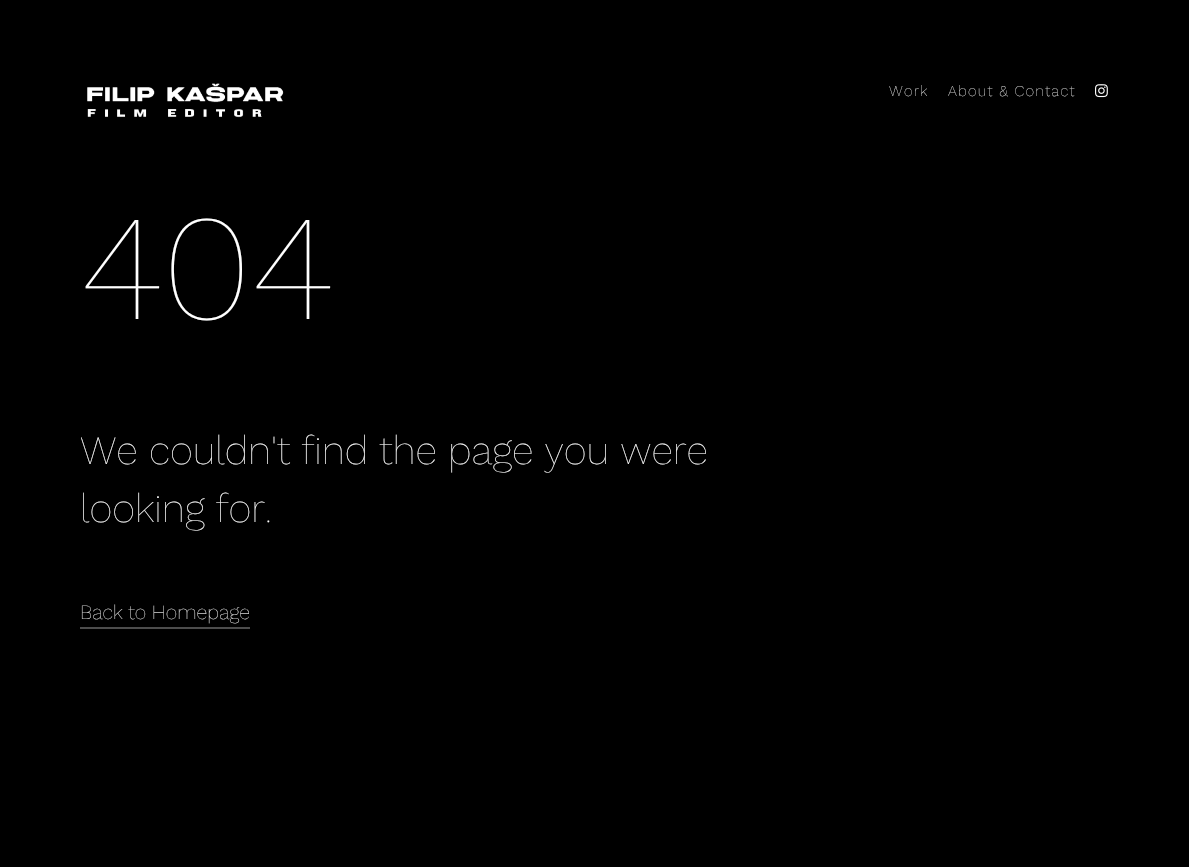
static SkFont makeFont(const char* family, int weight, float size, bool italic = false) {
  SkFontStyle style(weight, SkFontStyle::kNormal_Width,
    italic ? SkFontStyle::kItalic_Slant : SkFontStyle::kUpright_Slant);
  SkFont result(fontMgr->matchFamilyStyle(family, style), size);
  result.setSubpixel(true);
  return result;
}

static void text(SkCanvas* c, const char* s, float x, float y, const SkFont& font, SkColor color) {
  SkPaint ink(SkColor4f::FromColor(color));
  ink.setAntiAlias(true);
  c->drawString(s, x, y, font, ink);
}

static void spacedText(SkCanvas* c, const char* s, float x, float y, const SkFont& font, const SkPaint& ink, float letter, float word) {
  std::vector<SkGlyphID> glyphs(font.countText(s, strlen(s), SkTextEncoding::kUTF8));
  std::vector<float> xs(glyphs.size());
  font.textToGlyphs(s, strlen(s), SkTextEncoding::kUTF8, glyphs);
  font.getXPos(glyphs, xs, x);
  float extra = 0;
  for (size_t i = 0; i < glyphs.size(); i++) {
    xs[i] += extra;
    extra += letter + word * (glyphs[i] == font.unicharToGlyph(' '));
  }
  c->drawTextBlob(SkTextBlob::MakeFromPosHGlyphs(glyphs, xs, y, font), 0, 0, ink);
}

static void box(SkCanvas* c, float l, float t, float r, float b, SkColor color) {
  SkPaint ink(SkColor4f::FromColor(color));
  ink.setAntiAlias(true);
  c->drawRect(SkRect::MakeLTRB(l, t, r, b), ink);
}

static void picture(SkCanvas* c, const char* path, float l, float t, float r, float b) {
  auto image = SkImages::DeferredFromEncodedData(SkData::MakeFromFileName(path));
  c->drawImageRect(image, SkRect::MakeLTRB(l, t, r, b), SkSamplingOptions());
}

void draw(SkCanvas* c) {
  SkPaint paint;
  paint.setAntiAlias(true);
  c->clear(0xff000000);
  picture(c, "img_01.png", 87, 83, 284, 118);
  SkFont face1 = makeFont("Work Sans", 100, 15);
  paint.setColor(0xffffffff);
  spacedText(c, "Work", 889, 96, face1, paint, 1.25f, 0);
  spacedText(c, "About & Contact", 948, 96, face1, paint, 1.25f, 0);
  picture(c, "img_02.png", 1095, 84, 1108, 98);
  SkFont face2 = makeFont("Work Sans", 100, 150);
  text(c, "404", 80, 319, face2, 0xffffffff);
  SkFont face3 = makeFont("Work Sans", 100, 40);
  text(c, "We couldn't find the page you were", 80, 464, face3, 0xffffffff);
  text(c, "looking for.", 80, 522, face3, 0xffffffff);
  box(c, 80, 627, 250, 629, 0xff4d4d4d);
  SkFont face4 = makeFont("Work Sans", 100, 20);
  text(c, "Back to Homepage", 80, 619, face4, 0xffffffff);
}
